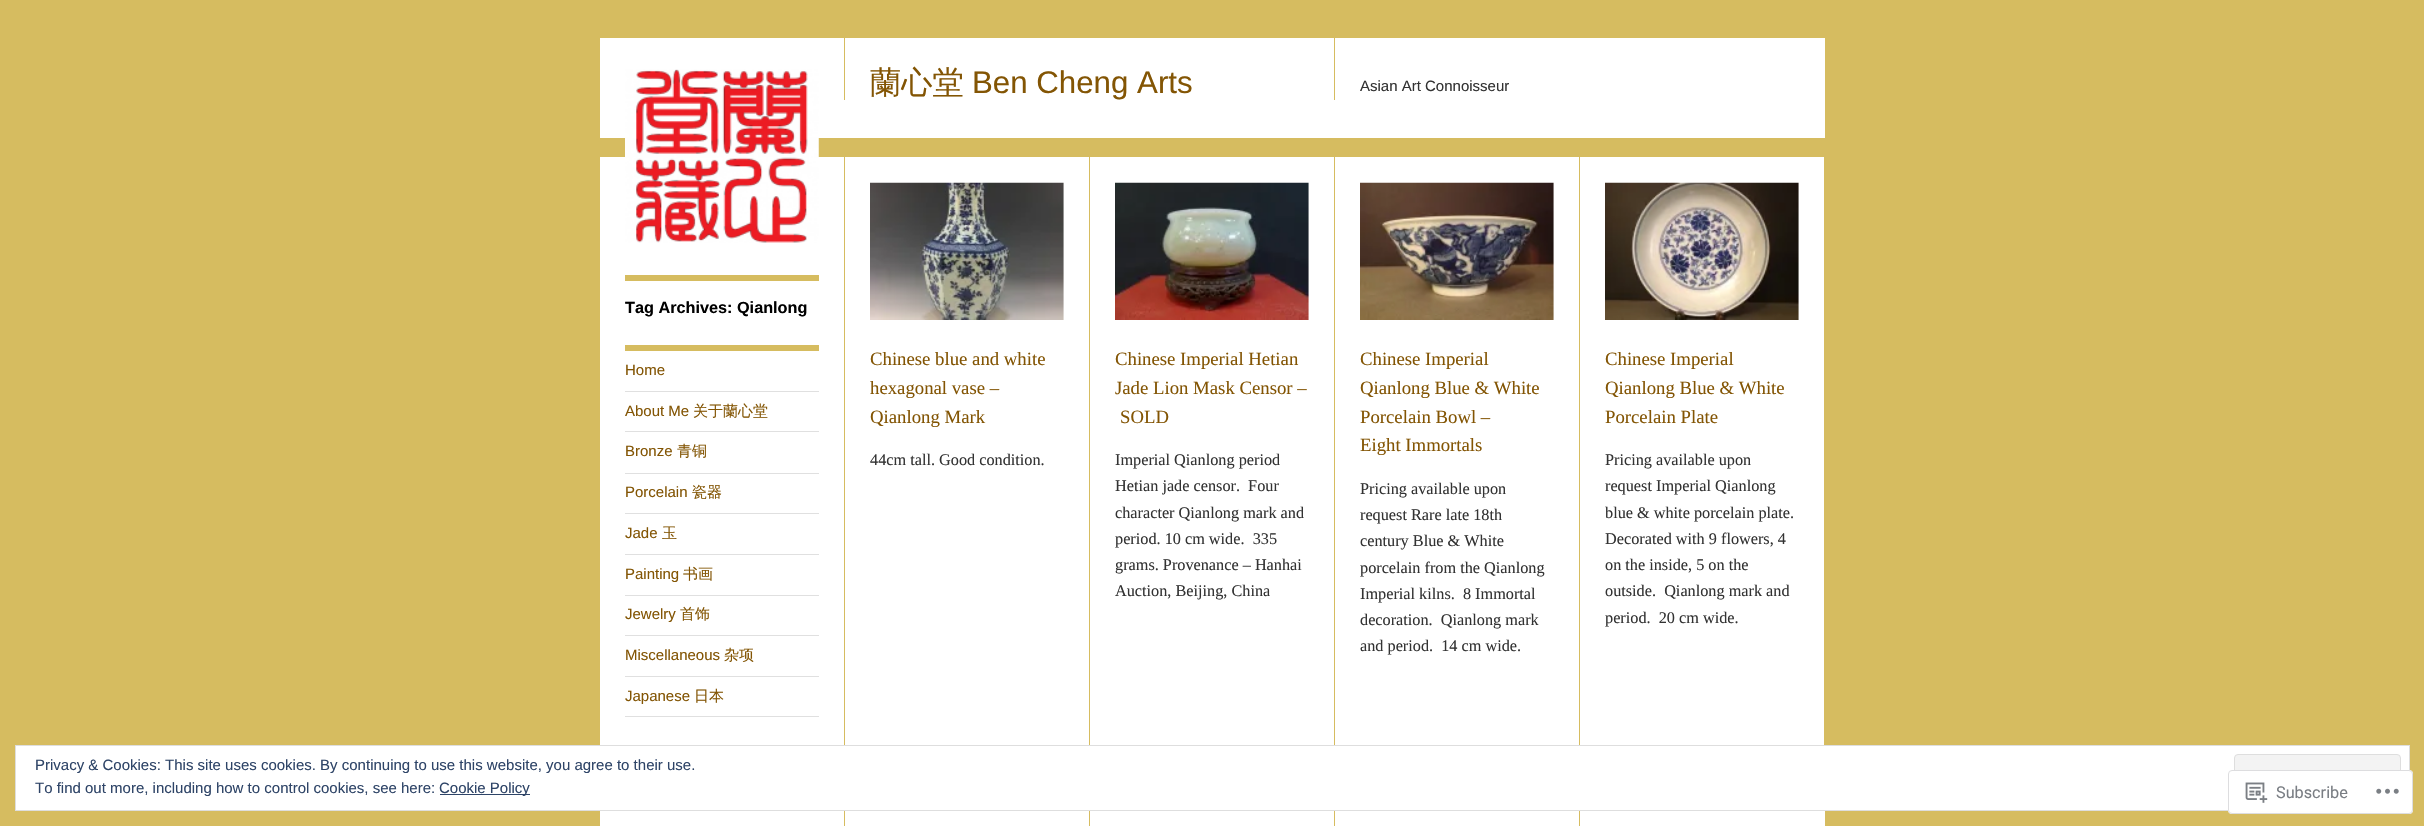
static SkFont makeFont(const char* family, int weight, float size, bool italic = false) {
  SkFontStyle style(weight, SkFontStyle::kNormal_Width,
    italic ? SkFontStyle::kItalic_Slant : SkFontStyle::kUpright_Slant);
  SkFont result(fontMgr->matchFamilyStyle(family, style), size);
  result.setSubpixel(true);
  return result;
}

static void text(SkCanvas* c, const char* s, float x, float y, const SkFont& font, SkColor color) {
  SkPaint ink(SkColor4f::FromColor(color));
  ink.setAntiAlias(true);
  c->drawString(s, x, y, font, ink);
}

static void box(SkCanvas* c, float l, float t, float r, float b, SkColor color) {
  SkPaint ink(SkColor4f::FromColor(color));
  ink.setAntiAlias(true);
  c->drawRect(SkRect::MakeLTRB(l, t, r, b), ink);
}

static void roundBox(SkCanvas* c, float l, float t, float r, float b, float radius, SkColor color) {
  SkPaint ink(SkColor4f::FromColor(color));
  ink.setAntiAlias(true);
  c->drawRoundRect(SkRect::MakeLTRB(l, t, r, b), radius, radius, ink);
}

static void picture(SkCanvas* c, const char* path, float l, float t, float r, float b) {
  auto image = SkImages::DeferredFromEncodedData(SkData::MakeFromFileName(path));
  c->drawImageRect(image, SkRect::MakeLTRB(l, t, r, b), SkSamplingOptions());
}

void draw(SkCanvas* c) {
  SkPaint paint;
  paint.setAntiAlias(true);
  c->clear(0xffd6bc60);
  box(c, 600, 38, 1825, 138, 0xffffffff);
  box(c, 600, 157, 1825, 826, 0xffffffff);
  picture(c, "img_01.png", 625, 69, 819, 243);
  box(c, 844, 38, 845, 100, 0xffd6bc60);
  SkFont face1 = makeFont("WenQuanYi Zen Hei", 500, 31.25f);
  text(c, "蘭心堂", 870, 93, face1, 0xff835504);
  SkFont face2 = makeFont("Liberation Sans", 400, 31.25f);
  text(c, "Ben Cheng Arts", 972, 93, face2, 0xff835504);
  box(c, 1334, 38, 1335, 100, 0xffd6bc60);
  SkFont face3 = makeFont("Liberation Sans", 400, 15);
  text(c, "Asian Art Connoisseur", 1360, 91, face3, 0xff333333);
  box(c, 844, 156, 845, 745, 0xffd6bc60);
  box(c, 625, 275, 819, 281, 0xffd6bc60);
  SkFont face4 = makeFont("Liberation Sans", 700, 16.25f);
  text(c, "Tag Archives: Qianlong", 625, 313, face4, 0xff000000);
  box(c, 625, 345, 819, 351, 0xffd6bc60);
  box(c, 625, 391, 819, 392, 0xffe0e0e0);
  text(c, "Home", 625, 375, face3, 0xff835504);
  box(c, 625, 431, 819, 432, 0xffe0e0e0);
  text(c, "About Me", 625, 416, face3, 0xff835504);
  SkFont face5 = makeFont("WenQuanYi Zen Hei", 500, 15);
  text(c, "关于蘭心堂", 693, 416, face5, 0xff835504);
  box(c, 625, 473, 819, 474, 0xffe0e0e0);
  text(c, "Bronze", 625, 456, face3, 0xff835504);
  text(c, "青铜", 677, 456, face5, 0xff835504);
  box(c, 625, 513, 819, 514, 0xffe0e0e0);
  text(c, "Porcelain", 625, 497, face3, 0xff835504);
  text(c, "瓷器", 692, 497, face5, 0xff835504);
  box(c, 625, 554, 819, 555, 0xffe0e0e0);
  text(c, "Jade", 625, 538, face3, 0xff835504);
  text(c, "玉", 662, 538, face5, 0xff835504);
  box(c, 625, 595, 819, 596, 0xffe0e0e0);
  text(c, "Painting", 625, 579, face3, 0xff835504);
  text(c, "书画", 683, 579, face5, 0xff835504);
  box(c, 625, 635, 819, 636, 0xffe0e0e0);
  text(c, "Jewelry", 625, 619, face3, 0xff835504);
  text(c, "首饰", 680, 619, face5, 0xff835504);
  box(c, 625, 676, 819, 677, 0xffe0e0e0);
  text(c, "Miscellaneous", 625, 660, face3, 0xff835504);
  text(c, "杂项", 724, 660, face5, 0xff835504);
  box(c, 625, 716, 819, 717, 0xffe0e0e0);
  text(c, "Japanese", 625, 701, face3, 0xff835504);
  text(c, "日本", 694, 701, face5, 0xff835504);
  box(c, 1089, 156, 1090, 745, 0xffd6bc60);
  picture(c, "img_02.png", 870, 182, 1064, 320);
  SkFont face6 = makeFont("Liberation Serif", 400, 18.75f);
  text(c, "Chinese blue and white", 870, 365, face6, 0xff835504);
  text(c, "hexagonal vase –", 870, 394, face6, 0xff835504);
  text(c, "Qianlong Mark", 870, 423, face6, 0xff835504);
  SkFont face7 = makeFont("Liberation Serif", 400, 16.25f);
  text(c, "44cm tall. Good condition.", 870, 465, face7, 0xff333333);
  box(c, 1334, 156, 1335, 745, 0xffd6bc60);
  picture(c, "img_03.png", 1115, 182, 1309, 320);
  text(c, "Chinese Imperial Hetian", 1115, 365, face6, 0xff835504);
  text(c, "Jade Lion Mask Censor –", 1115, 394, face6, 0xff835504);
  text(c, "SOLD", 1120, 423, face6, 0xff835504);
  text(c, "Imperial Qianlong period", 1115, 465, face7, 0xff333333);
  text(c, "Hetian jade censor.  Four", 1115, 491, face7, 0xff333333);
  text(c, "character Qianlong mark and", 1115, 518, face7, 0xff333333);
  text(c, "period. 10 cm wide.  335", 1115, 544, face7, 0xff333333);
  text(c, "grams. Provenance – Hanhai", 1115, 570, face7, 0xff333333);
  text(c, "Auction, Beijing, China", 1115, 596, face7, 0xff333333);
  box(c, 1579, 156, 1580, 745, 0xffd6bc60);
  picture(c, "img_04.png", 1360, 182, 1554, 320);
  text(c, "Chinese Imperial", 1360, 365, face6, 0xff835504);
  text(c, "Qianlong Blue & White", 1360, 394, face6, 0xff835504);
  text(c, "Porcelain Bowl –", 1360, 423, face6, 0xff835504);
  text(c, "Eight Immortals", 1360, 451, face6, 0xff835504);
  text(c, "Pricing available upon", 1360, 494, face7, 0xff333333);
  text(c, "request Rare late 18th", 1360, 520, face7, 0xff333333);
  text(c, "century Blue & White", 1360, 546, face7, 0xff333333);
  text(c, "porcelain from the Qianlong", 1360, 573, face7, 0xff333333);
  text(c, "Imperial kilns.  8 Immortal", 1360, 599, face7, 0xff333333);
  text(c, "decoration.  Qianlong mark", 1360, 625, face7, 0xff333333);
  text(c, "and period.  14 cm wide.", 1360, 651, face7, 0xff333333);
  box(c, 1824, 156, 1825, 745, 0xffd6bc60);
  picture(c, "img_05.png", 1605, 182, 1799, 320);
  text(c, "Chinese Imperial", 1605, 365, face6, 0xff835504);
  text(c, "Qianlong Blue & White", 1605, 394, face6, 0xff835504);
  text(c, "Porcelain Plate", 1605, 423, face6, 0xff835504);
  text(c, "Pricing available upon", 1605, 465, face7, 0xff333333);
  text(c, "request Imperial Qianlong", 1605, 491, face7, 0xff333333);
  text(c, "blue & white porcelain plate.", 1605, 518, face7, 0xff333333);
  text(c, "Decorated with 9 flowers, 4", 1605, 544, face7, 0xff333333);
  text(c, "on the inside, 5 on the", 1605, 570, face7, 0xff333333);
  text(c, "outside.  Qianlong mark and", 1605, 596, face7, 0xff333333);
  text(c, "period.  20 cm wide.", 1605, 623, face7, 0xff333333);
  box(c, 844, 808, 845, 826, 0xffd6bc60);
  box(c, 1089, 808, 1090, 826, 0xffd6bc60);
  box(c, 1334, 808, 1335, 826, 0xffd6bc60);
  box(c, 1579, 808, 1580, 826, 0xffd6bc60);
  paint.setColor(0xffffffff);
  c->drawRect(SkRect::MakeLTRB(15.5f, 745.5f, 2409.5f, 810.5f), paint);
  paint.setStyle(SkPaint::kStroke_Style);
  paint.setStrokeWidth(1);
  paint.setColor(0xffdedede);
  c->drawRect(SkRect::MakeLTRB(15.5f, 745.5f, 2409.5f, 810.5f), paint);
  text(c, "Privacy & Cookies: This site uses cookies. By continuing to use this website, you agree to their use.", 35, 770, face3, 0xff2e4467);
  paint.setStyle(SkPaint::kFill_Style);
  paint.setColor(0xfff3f3f3);
  c->drawRoundRect(SkRect::MakeLTRB(2234.5f, 754.5f, 2400.5f, 802.5f), 3.5f, 3.5f, paint);
  paint.setStyle(SkPaint::kStroke_Style);
  paint.setColor(0xffdedede);
  c->drawRoundRect(SkRect::MakeLTRB(2234.5f, 754.5f, 2400.5f, 802.5f), 3.5f, 3.5f, paint);
  text(c, "To find out more, including how to control cookies, see here:", 35, 793, face3, 0xff2e4467);
  box(c, 440, 794, 530, 795, 0xff2e4467);
  text(c, "Cookie Policy", 439, 793, face3, 0xff2e4467);
  roundBox(c, 2228, 770, 2413, 814, 4, 0xfaffffff);
  paint.setColor(0xfadcdcde);
  c->drawRoundRect(SkRect::MakeLTRB(2228.5f, 770.5f, 2412.5f, 813.5f), 3.5f, 3.5f, paint);
  picture(c, "img_06.png", 2245, 782, 2268, 803);
  SkFont face8 = makeFont("Roboto", 400, 16.25f);
  text(c, "Subscribe", 2276, 798, face8, 0xff7a7e84);
  picture(c, "img_07.png", 2376, 788, 2399, 794);
}
